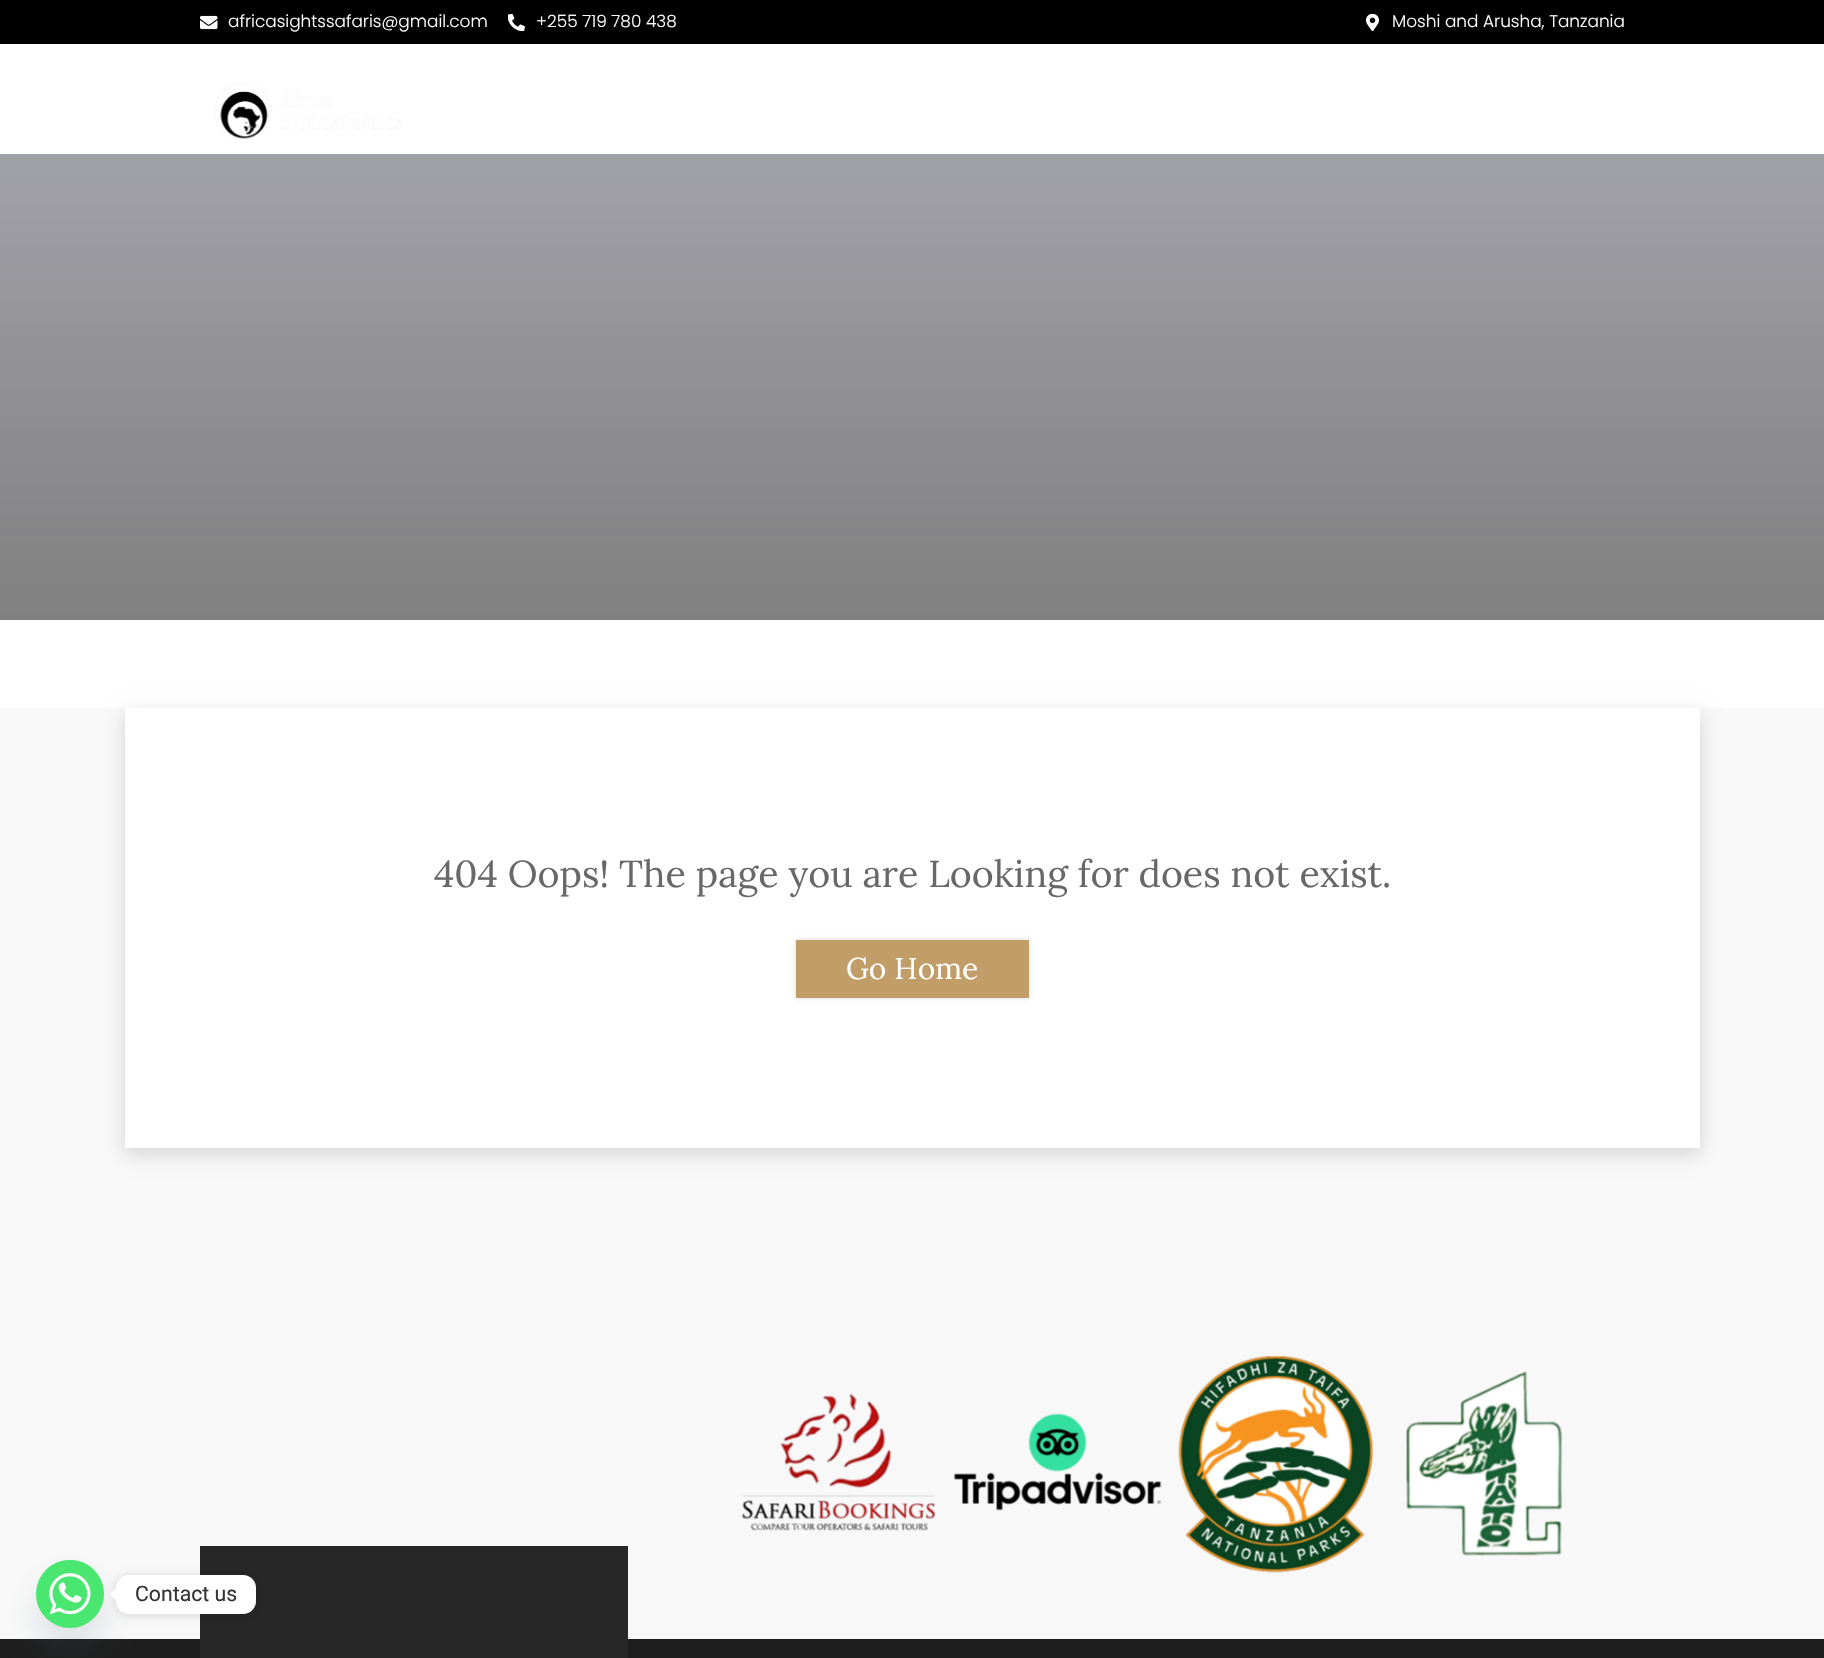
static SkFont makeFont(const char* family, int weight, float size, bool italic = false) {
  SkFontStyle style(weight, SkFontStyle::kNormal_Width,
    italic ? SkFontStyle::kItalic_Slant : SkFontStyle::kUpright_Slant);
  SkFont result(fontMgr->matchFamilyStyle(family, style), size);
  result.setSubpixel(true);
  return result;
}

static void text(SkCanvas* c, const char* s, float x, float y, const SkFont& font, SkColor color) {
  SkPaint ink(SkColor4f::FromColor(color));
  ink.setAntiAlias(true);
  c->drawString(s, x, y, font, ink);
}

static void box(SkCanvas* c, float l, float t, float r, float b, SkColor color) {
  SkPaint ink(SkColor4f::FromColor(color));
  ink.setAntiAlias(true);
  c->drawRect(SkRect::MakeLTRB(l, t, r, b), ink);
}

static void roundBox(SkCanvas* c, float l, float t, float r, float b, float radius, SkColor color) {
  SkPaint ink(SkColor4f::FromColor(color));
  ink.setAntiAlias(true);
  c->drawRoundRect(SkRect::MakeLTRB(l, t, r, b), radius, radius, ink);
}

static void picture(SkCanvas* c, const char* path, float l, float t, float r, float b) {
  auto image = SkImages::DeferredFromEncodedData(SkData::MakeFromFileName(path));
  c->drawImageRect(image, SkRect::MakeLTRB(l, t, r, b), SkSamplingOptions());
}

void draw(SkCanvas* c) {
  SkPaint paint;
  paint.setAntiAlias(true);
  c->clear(0xffffffff);
  box(c, 0, 0, 1824, 44, 0xff000000);
  picture(c, "img_01.png", 200, 15, 218, 30);
  SkFont face1 = makeFont("Poppins", 300, 16.9f);
  text(c, "africasightssafaris@gmail.com", 228, 27, face1, 0xffffffff);
  picture(c, "img_02.png", 508, 14, 525, 31);
  text(c, "+255 719 780 438", 536, 27, face1, 0xffffffff);
  picture(c, "img_03.png", 1365, 14, 1380, 31);
  text(c, "Moshi and Arusha, Tanzania", 1392, 27, face1, 0xffffffff);
  picture(c, "img_04.png", 214, 83, 402, 140);
  {
    const SkColor colors[] = {0xffa1a1a8, 0xff808080};
    const float stops[] = {0, 1};
    const SkPoint ends[] = {{913, 154}, {913, 620}};
    paint.setShader(SkGradientShader::MakeLinear(ends, colors, stops, 2, SkTileMode::kClamp));
    paint.setAlpha(255);
  }
  c->drawRect(SkRect::MakeLTRB(0, 154, 1824, 620), paint);
  box(c, 0, 708, 1824, 1255, 0xfff9f9f9);
  paint.setShader(nullptr);
  paint.setColor(0x26000000);
  paint.setMaskFilter(SkMaskFilter::MakeBlur(kNormal_SkBlurStyle, 9.5f));
  c->drawRect(SkRect::MakeLTRB(125, 714, 1700, 1154), paint);
  paint.setMaskFilter(nullptr);
  box(c, 125, 708, 1700, 1148, 0xffffffff);
  SkFont face2 = makeFont("Lora", 400, 37.5f);
  text(c, "404 Oops! The page you are Looking for does not exist.", 434, 887, face2, 0xff686868);
  paint.setMaskFilter(SkMaskFilter::MakeBlur(kNormal_SkBlurStyle, 2.5f));
  c->drawRect(SkRect::MakeLTRB(796, 940, 1029, 998), paint);
  paint.setMaskFilter(nullptr);
  box(c, 796, 940, 1029, 998, 0xffc19d68);
  SkFont face3 = makeFont("Lora", 400, 30);
  text(c, "Go Home", 846, 979, face3, 0xffffffff);
  box(c, 0, 1255, 1824, 1639, 0xfff8f8f8);
  picture(c, "img_05.png", 741, 1393, 936, 1531);
  picture(c, "img_06.png", 953, 1413, 1162, 1511);
  picture(c, "img_07.png", 1178, 1356, 1374, 1573);
  picture(c, "img_08.png", 1406, 1371, 1563, 1556);
  box(c, 0, 1639, 1824, 1658, 0xff1e1e1e);
  box(c, 200, 1546, 628, 1658, 0xff272727);
  paint.setColor(0x2949687e);
  paint.setMaskFilter(SkMaskFilter::MakeBlur(kNormal_SkBlurStyle, 15));
  c->drawRoundRect(SkRect::MakeLTRB(36, 1580, 104, 1648), 34, 34, paint);
  paint.setMaskFilter(nullptr);
  paint.setColor(0xff49e670);
  c->drawCircle(70, 1594, 34, paint);
  picture(c, "img_09.png", 36, 1560, 104, 1615);
  paint.setColor(0x26000000);
  paint.setMaskFilter(SkMaskFilter::MakeBlur(kNormal_SkBlurStyle, 5));
  c->drawRoundRect(SkRect::MakeLTRB(116, 1576, 256, 1615), 13, 13, paint);
  paint.setMaskFilter(nullptr);
  roundBox(c, 116, 1575, 256, 1614, 13, 0xffffffff);
  paint.setColor(0xffffffff);
  c->drawPath(SkPathBuilder().moveTo(116, 1588).lineTo(116, 1600.5f).lineTo(110, 1594.5f).close().detach(), paint);
  SkFont face4 = makeFont("Roboto", 400, 21.25f);
  text(c, "Contact us", 135, 1601, face4, 0xff333333);
}
